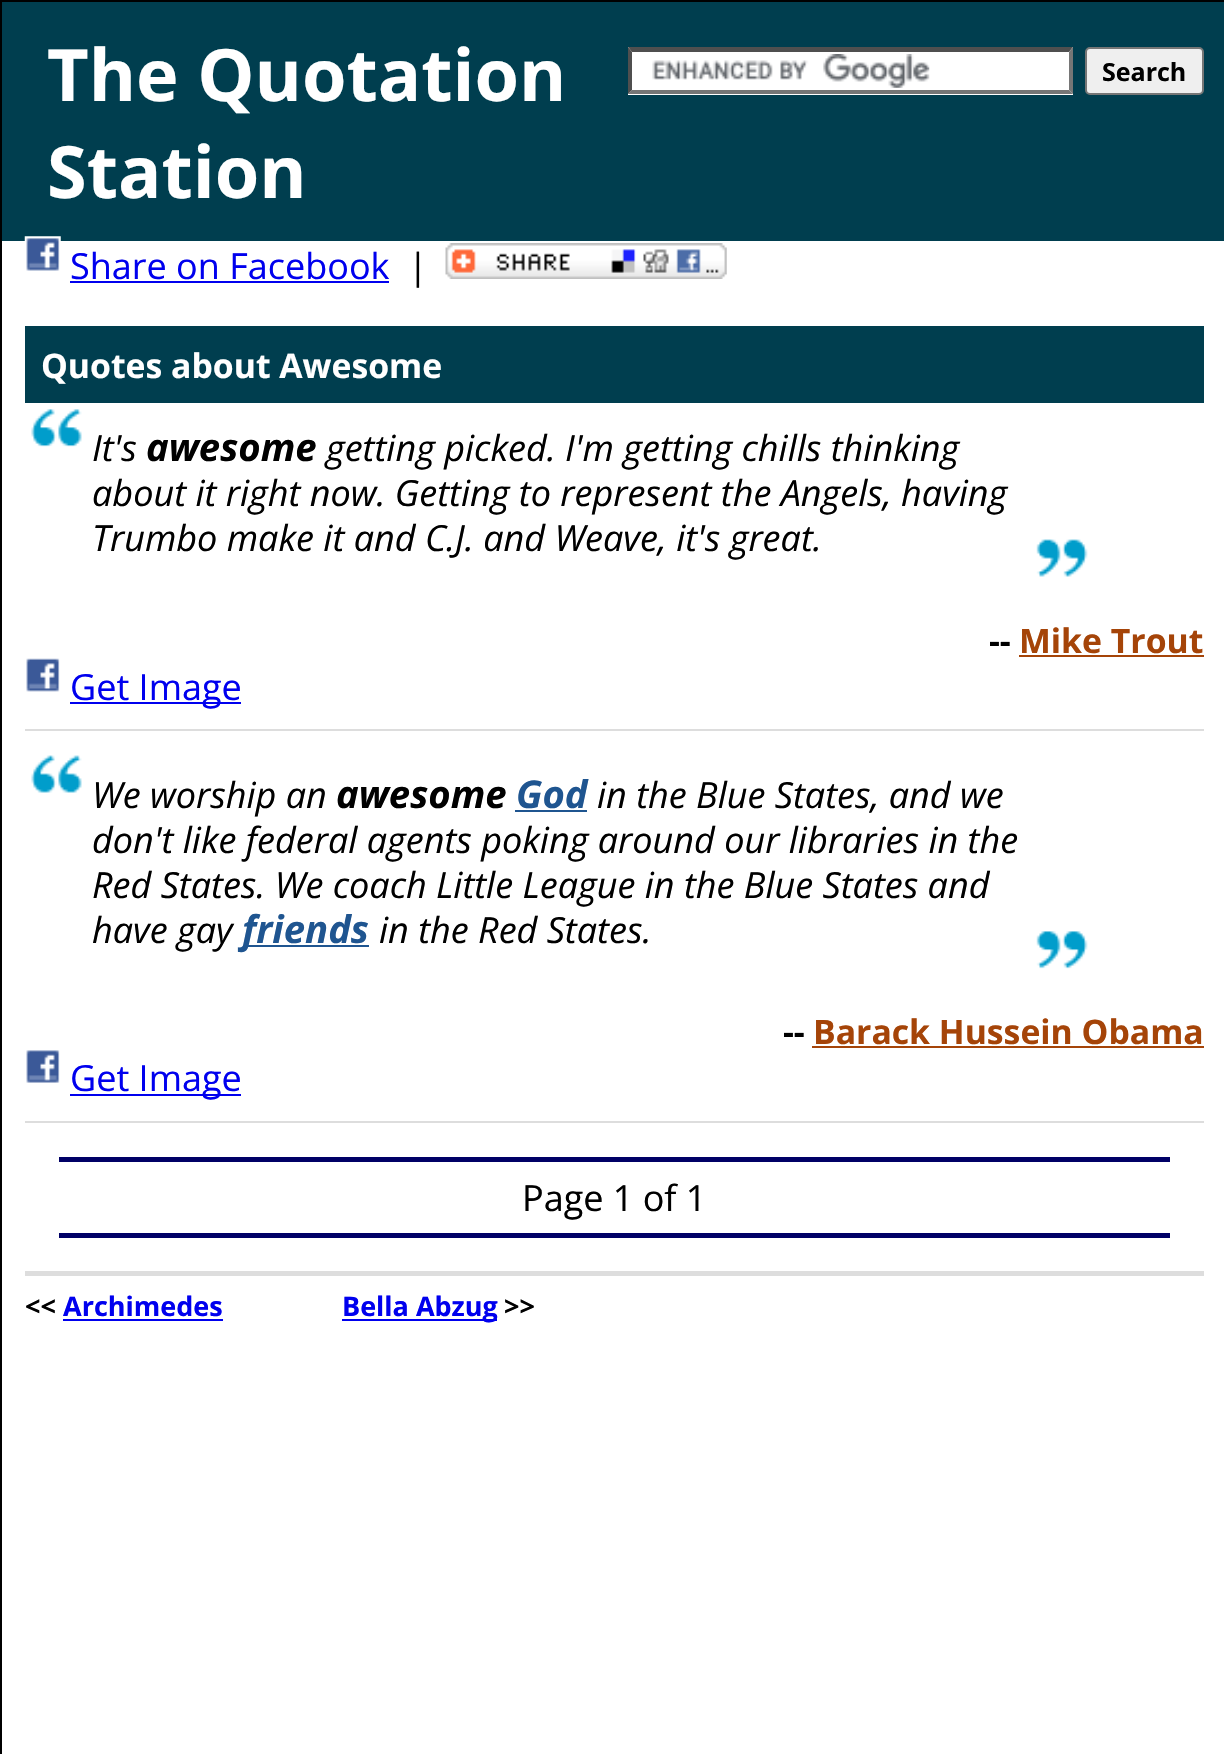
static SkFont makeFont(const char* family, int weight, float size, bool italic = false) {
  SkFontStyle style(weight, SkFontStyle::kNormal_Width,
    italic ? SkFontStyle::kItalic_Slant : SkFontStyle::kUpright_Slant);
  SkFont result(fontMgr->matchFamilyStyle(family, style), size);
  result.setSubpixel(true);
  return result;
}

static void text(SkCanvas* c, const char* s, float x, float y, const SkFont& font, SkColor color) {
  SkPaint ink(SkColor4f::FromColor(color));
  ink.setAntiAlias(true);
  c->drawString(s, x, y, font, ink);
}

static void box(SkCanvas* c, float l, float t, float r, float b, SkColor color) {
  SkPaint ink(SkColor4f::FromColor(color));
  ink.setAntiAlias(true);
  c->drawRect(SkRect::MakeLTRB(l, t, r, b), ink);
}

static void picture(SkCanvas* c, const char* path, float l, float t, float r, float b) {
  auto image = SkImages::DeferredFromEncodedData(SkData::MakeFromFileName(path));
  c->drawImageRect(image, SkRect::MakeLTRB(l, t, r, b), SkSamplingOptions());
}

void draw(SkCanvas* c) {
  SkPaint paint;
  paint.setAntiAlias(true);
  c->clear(0xffffffff);
  paint.setStyle(SkPaint::kStroke_Style);
  paint.setStrokeWidth(2);
  paint.setColor(0xff000000);
  c->drawRect(SkRect::MakeLTRB(1, 1, 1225, 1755), paint);
  box(c, 2, 2, 1224, 241, 0xff003e4f);
  SkFont face1 = makeFont("Open Sans", 700, 72);
  text(c, "The Quotation", 47, 101, face1, 0xffffffff);
  text(c, "Station", 47, 198, face1, 0xffffffff);
  box(c, 628, 47, 1073, 95, 0xffffffff);
  picture(c, "img_01.png", 652, 54, 930, 88);
  paint.setStyle(SkPaint::kFill_Style);
  paint.setColor(0xff4f4f4f);
  c->drawPath(SkPathBuilder().moveTo(628, 47).lineTo(1073, 47).lineTo(1069, 52).lineTo(632, 52).close().detach(), paint);
  paint.setColor(0xff767676);
  c->drawPath(SkPathBuilder().moveTo(1073, 47).lineTo(1073, 94).lineTo(1069, 90).lineTo(1069, 52).close().detach(), paint);
  c->drawPath(SkPathBuilder().moveTo(1073, 94).lineTo(628, 94).lineTo(632, 90).lineTo(1069, 90).close().detach(), paint);
  paint.setColor(0xff4f4f4f);
  c->drawPath(SkPathBuilder().moveTo(628, 94).lineTo(628, 47).lineTo(632, 52).lineTo(632, 90).close().detach(), paint);
  paint.setColor(0xffefefef);
  c->drawRoundRect(SkRect::MakeLTRB(1086, 48, 1203, 94), 4, 4, paint);
  paint.setStyle(SkPaint::kStroke_Style);
  paint.setColor(0xff767676);
  c->drawRoundRect(SkRect::MakeLTRB(1086, 48, 1203, 94), 4, 4, paint);
  SkFont face2 = makeFont("Open Sans", 700, 25);
  text(c, "Search", 1102, 81, face2, 0xff000000);
  picture(c, "img_02.png", 24, 236, 61, 271);
  SkFont face3 = makeFont("Open Sans", 400, 36);
  text(c, "Share on Facebook", 70, 279, face3, 0xff0000ee);
  box(c, 70, 281, 389, 283, 0xff0000ee);
  text(c, "|", 408, 279, face3, 0xff000000);
  picture(c, "img_03.png", 445, 243, 727, 279);
  box(c, 25, 326, 1204, 403, 0xff003e4f);
  SkFont face4 = makeFont("Open Sans", 700, 33.75f);
  text(c, "Quotes about Awesome", 41, 378, face4, 0xffffffff);
  picture(c, "img_04.png", 31, 409, 82, 447);
  picture(c, "img_05.png", 1036, 539, 1088, 577);
  SkFont face5 = makeFont("Open Sans", 400, 36, true);
  text(c, "It's", 92, 461, face5, 0xff000000);
  SkFont face6 = makeFont("Open Sans", 700, 38.25f, true);
  text(c, "awesome", 146, 461, face6, 0xff000000);
  text(c, "getting picked. I'm getting chills thinking", 326, 461, face5, 0xff000000);
  text(c, "about it right now. Getting to represent the Angels, having", 92, 506, face5, 0xff000000);
  text(c, "Trumbo make it and C.J. and Weave, it's great.", 92, 551, face5, 0xff000000);
  text(c, "--", 989, 653, face4, 0xff000000);
  text(c, "Mike Trout", 1019, 653, face4, 0xffa54408);
  box(c, 1019, 655, 1204, 657, 0xffa54408);
  picture(c, "img_06.png", 26, 658, 60, 692);
  box(c, 70, 702, 241, 704, 0xff0000ee);
  text(c, "Get Image", 70, 700, face3, 0xff0000ee);
  box(c, 25, 729, 1204, 731, 0xffdddddd);
  picture(c, "img_07.png", 31, 755, 82, 793);
  picture(c, "img_08.png", 1036, 931, 1088, 969);
  text(c, "We worship an", 92, 808, face5, 0xff000000);
  text(c, "awesome", 336, 808, face6, 0xff000000);
  text(c, "God", 516, 808, face6, 0xff1f5590);
  box(c, 515, 810, 587, 812, 0xff1f5590);
  text(c, "in the Blue States, and we", 597, 808, face5, 0xff000000);
  text(c, "don't like federal agents poking around our libraries in the", 92, 853, face5, 0xff000000);
  text(c, "Red States. We coach Little League in the Blue States and", 92, 898, face5, 0xff000000);
  text(c, "have gay", 92, 943, face5, 0xff000000);
  box(c, 243, 945, 369, 947, 0xff1f5590);
  text(c, "friends", 242, 943, face6, 0xff1f5590);
  text(c, "in the Red States.", 379, 943, face5, 0xff000000);
  text(c, "--", 783, 1044, face4, 0xff000000);
  text(c, "Barack Hussein Obama", 813, 1044, face4, 0xffa54408);
  box(c, 812, 1046, 1204, 1048, 0xffa54408);
  picture(c, "img_09.png", 26, 1050, 60, 1083);
  box(c, 70, 1094, 241, 1096, 0xff0000ee);
  text(c, "Get Image", 70, 1091, face3, 0xff0000ee);
  box(c, 25, 1121, 1204, 1123, 0xffdddddd);
  box(c, 59, 1157, 1170, 1162, 0xff000066);
  box(c, 59, 1233, 1170, 1238, 0xff000066);
  text(c, "Page 1 of 1", 522, 1211, face3, 0xff000000);
  box(c, 25, 1271, 1204, 1276, 0xffdddddd);
  SkFont face7 = makeFont("Open Sans", 700, 27);
  text(c, "<<", 25, 1316, face7, 0xff000000);
  text(c, "Archimedes", 63, 1316, face7, 0xff0000ee);
  box(c, 63, 1319, 223, 1321, 0xff0000ee);
  box(c, 342, 1319, 497, 1321, 0xff0000ee);
  text(c, "Bella Abzug", 342, 1316, face7, 0xff0000ee);
  text(c, ">>", 504, 1316, face7, 0xff000000);
}
